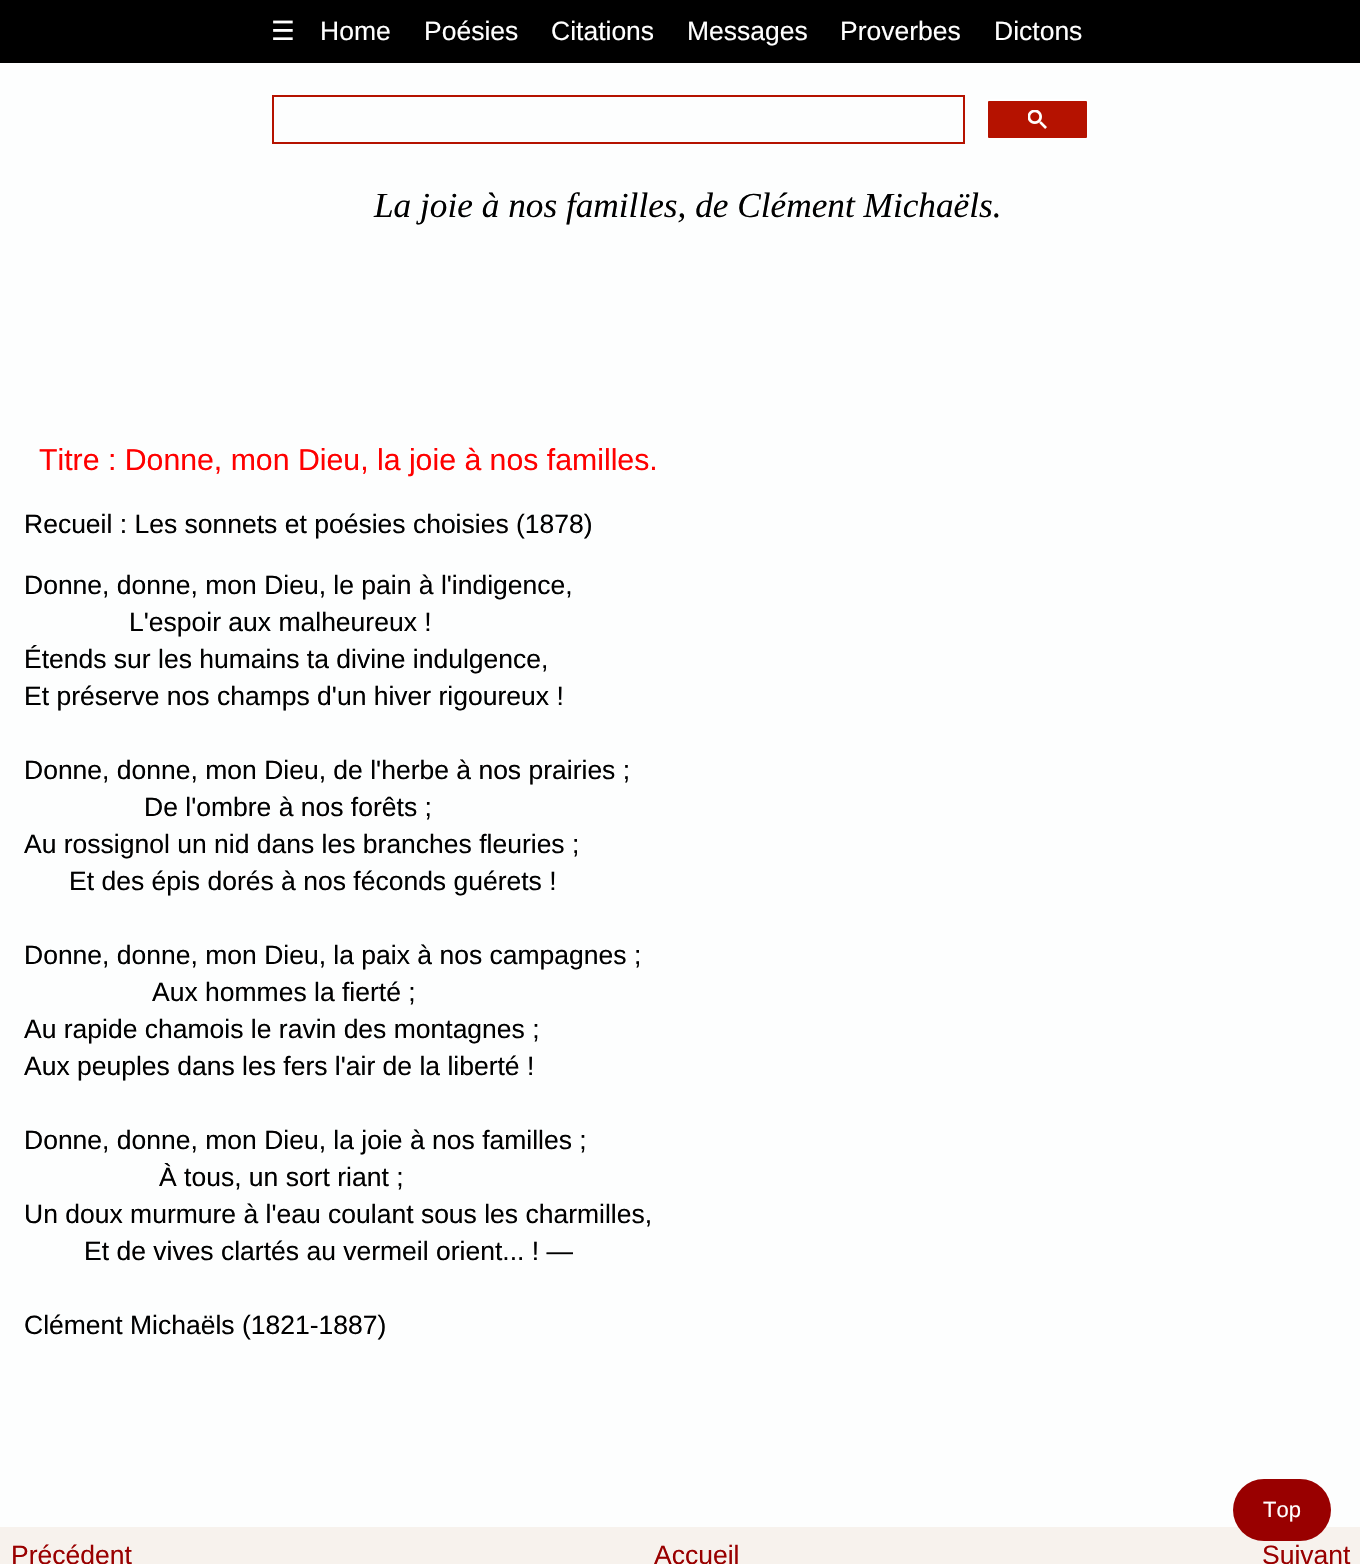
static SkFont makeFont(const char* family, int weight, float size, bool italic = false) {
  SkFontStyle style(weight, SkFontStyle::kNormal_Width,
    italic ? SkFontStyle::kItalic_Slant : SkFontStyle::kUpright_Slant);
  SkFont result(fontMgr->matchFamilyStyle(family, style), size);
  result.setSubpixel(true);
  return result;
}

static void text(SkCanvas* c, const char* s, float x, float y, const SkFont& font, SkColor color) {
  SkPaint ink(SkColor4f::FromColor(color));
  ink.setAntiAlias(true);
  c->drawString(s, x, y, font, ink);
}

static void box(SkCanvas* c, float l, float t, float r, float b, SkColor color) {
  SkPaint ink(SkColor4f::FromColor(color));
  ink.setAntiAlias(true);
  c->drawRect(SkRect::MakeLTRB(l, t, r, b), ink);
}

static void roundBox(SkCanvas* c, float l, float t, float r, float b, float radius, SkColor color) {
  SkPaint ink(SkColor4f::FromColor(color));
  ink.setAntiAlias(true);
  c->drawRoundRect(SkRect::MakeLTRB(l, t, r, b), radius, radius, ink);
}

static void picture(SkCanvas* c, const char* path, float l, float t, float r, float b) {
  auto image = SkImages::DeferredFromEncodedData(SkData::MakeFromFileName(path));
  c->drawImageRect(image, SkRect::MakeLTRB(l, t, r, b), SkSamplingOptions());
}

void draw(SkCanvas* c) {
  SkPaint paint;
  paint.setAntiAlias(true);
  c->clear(0xfffdfefe);
  box(c, 0, 0, 1360, 63, 0xff000000);
  SkFont face1 = makeFont("DejaVu Sans", 400, 26.5f);
  text(c, "☰", 271, 40, face1, 0xffffffff);
  SkFont face2 = makeFont("Liberation Sans", 400, 26.5f);
  text(c, "Home", 320, 40, face2, 0xffffffff);
  text(c, "Poésies", 424, 40, face2, 0xffffffff);
  text(c, "Citations", 551, 40, face2, 0xffffffff);
  text(c, "Messages", 687, 40, face2, 0xffffffff);
  text(c, "Proverbes", 840, 40, face2, 0xffffffff);
  text(c, "Dictons", 994, 40, face2, 0xffffffff);
  paint.setStyle(SkPaint::kStroke_Style);
  paint.setStrokeWidth(2);
  paint.setColor(0xffb51200);
  c->drawRect(SkRect::MakeLTRB(273, 96, 964, 143), paint);
  paint.setStyle(SkPaint::kFill_Style);
  c->drawRoundRect(SkRect::MakeLTRB(987, 100, 1088, 139), 2, 2, paint);
  paint.setStyle(SkPaint::kStroke_Style);
  paint.setColor(0xffffffff);
  c->drawRoundRect(SkRect::MakeLTRB(987, 100, 1088, 139), 2, 2, paint);
  picture(c, "img_01.png", 1028, 110, 1047, 129);
  SkFont face3 = makeFont("Liberation Serif", 400, 35.25f, true);
  text(c, "La joie à nos familles, de Clément Michaëls.", 374, 217, face3, 0xff000000);
  SkFont face4 = makeFont("Liberation Sans", 400, 30.25f);
  text(c, "Titre : Donne, mon Dieu, la joie à nos familles.", 39, 470, face4, 0xffff0000);
  text(c, "Recueil : Les sonnets et poésies choisies (1878)", 24, 533, face2, 0xff000000);
  text(c, "Donne, donne, mon Dieu, le pain à l'indigence,", 24, 594, face2, 0xff000000);
  text(c, "L'espoir aux malheureux !", 129, 631, face2, 0xff000000);
  text(c, "Étends sur les humains ta divine indulgence,", 24, 668, face2, 0xff000000);
  text(c, "Et préserve nos champs d'un hiver rigoureux !", 24, 705, face2, 0xff000000);
  text(c, "Donne, donne, mon Dieu, de l'herbe à nos prairies ;", 24, 779, face2, 0xff000000);
  text(c, "De l'ombre à nos forêts ;", 144, 816, face2, 0xff000000);
  text(c, "Au rossignol un nid dans les branches fleuries ;", 24, 853, face2, 0xff000000);
  text(c, "Et des épis dorés à nos féconds guérets !", 69, 890, face2, 0xff000000);
  text(c, "Donne, donne, mon Dieu, la paix à nos campagnes ;", 24, 964, face2, 0xff000000);
  text(c, "Aux hommes la fierté ;", 152, 1001, face2, 0xff000000);
  text(c, "Au rapide chamois le ravin des montagnes ;", 24, 1038, face2, 0xff000000);
  text(c, "Aux peuples dans les fers l'air de la liberté !", 24, 1075, face2, 0xff000000);
  text(c, "Donne, donne, mon Dieu, la joie à nos familles ;", 24, 1149, face2, 0xff000000);
  text(c, "À tous, un sort riant ;", 159, 1186, face2, 0xff000000);
  text(c, "Un doux murmure à l'eau coulant sous les charmilles,", 24, 1223, face2, 0xff000000);
  text(c, "Et de vives clartés au vermeil orient... ! —", 84, 1260, face2, 0xff000000);
  text(c, "Clément Michaëls (1821-1887)", 24, 1334, face2, 0xff000000);
  box(c, 0, 1527, 1360, 1564, 0xfff7f2ed);
  text(c, "Précédent", 11, 1564, face2, 0xff990000);
  text(c, "Accueil", 654, 1564, face2, 0xff990000);
  text(c, "Suivant", 1262, 1564, face2, 0xff990000);
  roundBox(c, 1233, 1479, 1331, 1541, 31, 0xff990000);
  SkFont face5 = makeFont("Liberation Sans", 400, 22);
  text(c, "Top", 1263, 1517, face5, 0xffffffff);
}
